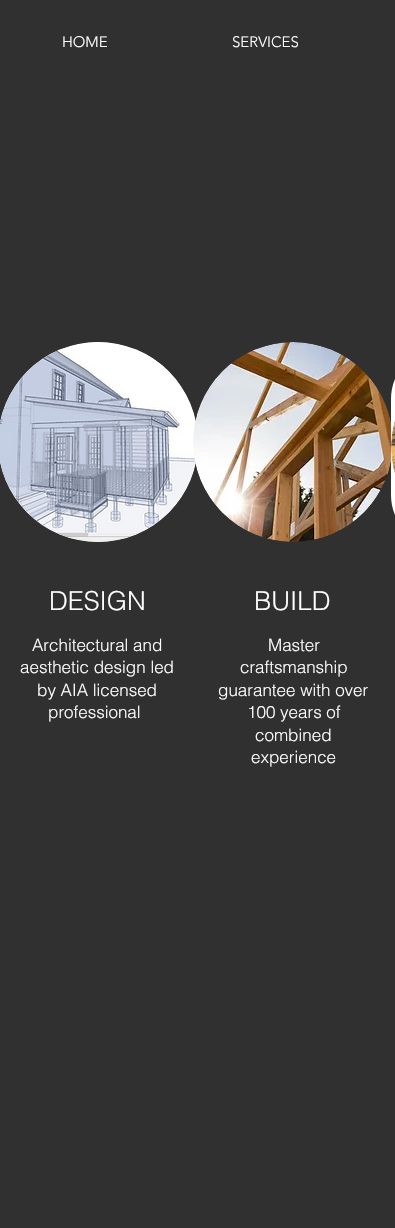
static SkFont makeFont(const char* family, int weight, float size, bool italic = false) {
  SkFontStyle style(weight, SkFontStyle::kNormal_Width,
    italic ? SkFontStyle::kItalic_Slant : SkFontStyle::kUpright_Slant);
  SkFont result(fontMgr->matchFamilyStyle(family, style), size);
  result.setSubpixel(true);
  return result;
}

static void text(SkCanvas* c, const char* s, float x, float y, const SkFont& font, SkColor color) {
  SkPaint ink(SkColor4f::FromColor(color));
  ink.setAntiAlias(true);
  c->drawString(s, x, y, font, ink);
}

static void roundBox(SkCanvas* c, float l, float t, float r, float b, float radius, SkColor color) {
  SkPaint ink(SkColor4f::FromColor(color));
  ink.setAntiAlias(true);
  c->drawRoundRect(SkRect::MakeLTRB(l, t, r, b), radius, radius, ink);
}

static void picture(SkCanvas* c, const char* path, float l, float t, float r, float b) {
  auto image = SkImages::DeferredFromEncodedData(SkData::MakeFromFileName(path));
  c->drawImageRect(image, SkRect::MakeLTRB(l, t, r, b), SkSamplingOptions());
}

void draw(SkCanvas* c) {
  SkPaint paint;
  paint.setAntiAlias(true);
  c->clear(0xff303030);
  SkFont face1 = makeFont("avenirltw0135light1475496", 300, 15);
  text(c, "HOME", 62, 47, face1, 0xffffffff);
  text(c, "SERVICES", 232, 47, face1, 0xffffffff);
  paint.setColor(0xffffffff);
  c->drawCircle(98, 442, 100, paint);
  picture(c, "img_02.png", 0, 342, 196, 542);
  picture(c, "img_03.png", 193, 342, 393, 542);
  roundBox(c, 391, 347, 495, 547, 100, 0xffffffff);
  picture(c, "img_01.png", 391, 420, 395, 474);
  SkFont face2 = makeFont("helvetica", 300, 26);
  text(c, "DESIGN", 49, 610, face2, 0xffffffff);
  SkFont face3 = makeFont("helvetica", 300, 17);
  text(c, "Architectural and", 32, 651, face3, 0xffffffff);
  text(c, "aesthetic design led", 20, 673, face3, 0xffffffff);
  text(c, "by AIA licensed", 37, 696, face3, 0xffffffff);
  text(c, "professional", 48, 718, face3, 0xffffffff);
  text(c, "BUILD", 254, 610, face2, 0xffffffff);
  text(c, "Master", 268, 651, face3, 0xffffffff);
  text(c, "craftsmanship", 240, 673, face3, 0xffffffff);
  text(c, "guarantee with over", 218, 696, face3, 0xffffffff);
  text(c, "100 years of", 247, 718, face3, 0xffffffff);
  text(c, "combined", 255, 741, face3, 0xffffffff);
  text(c, "experience", 251, 763, face3, 0xffffffff);
}
